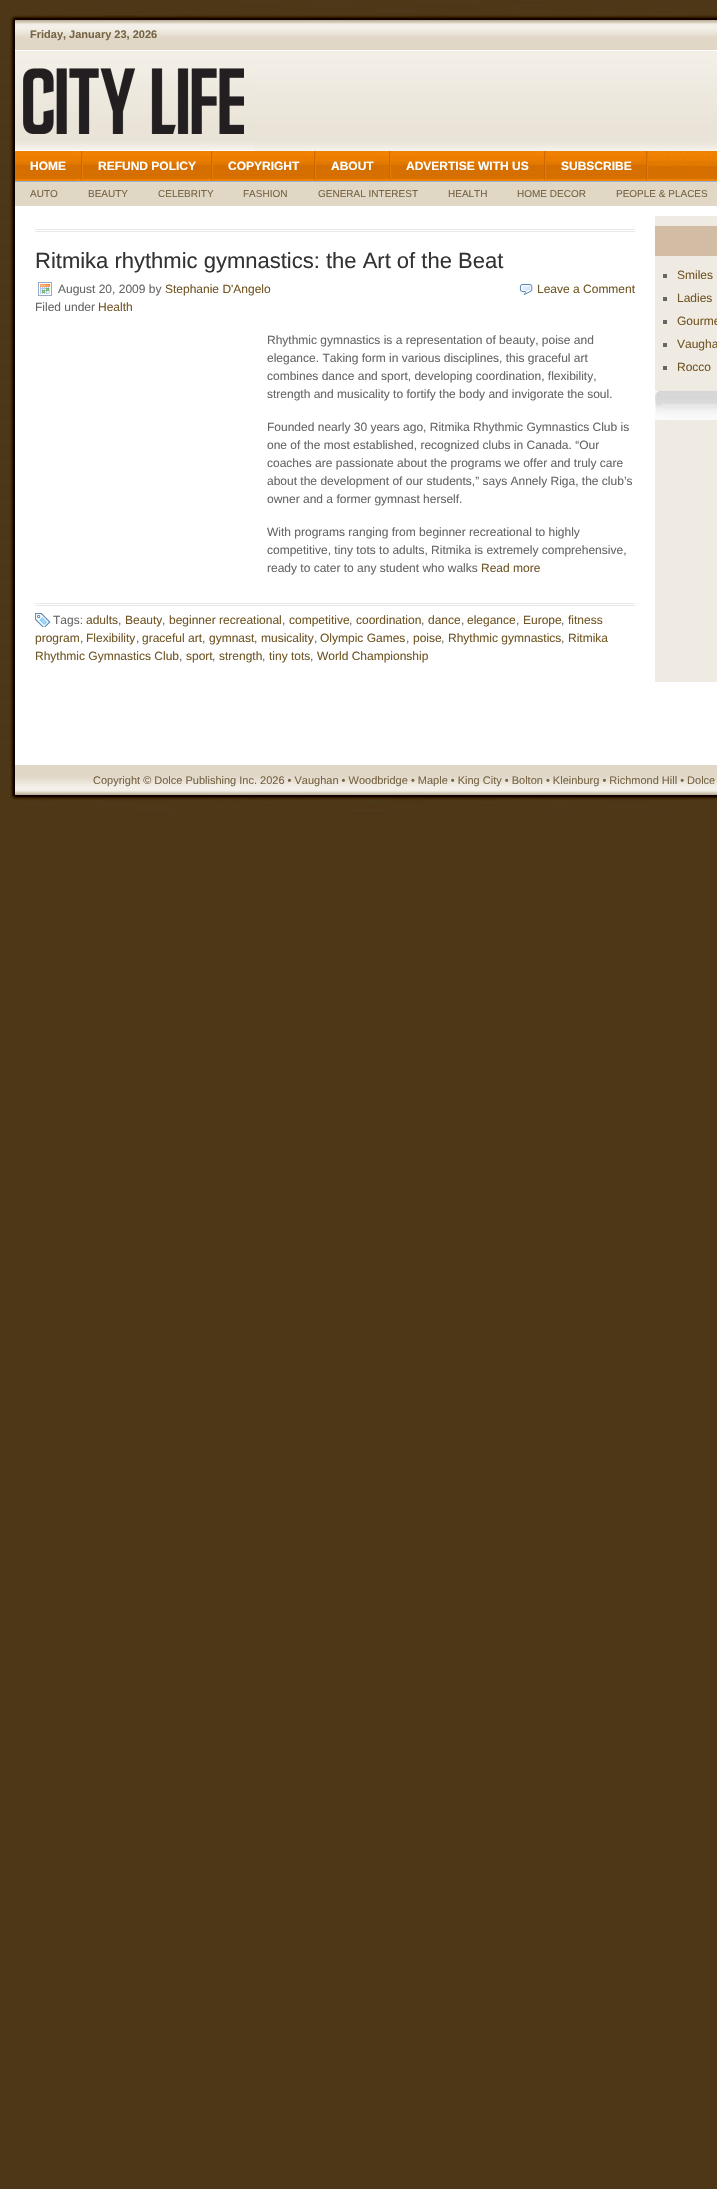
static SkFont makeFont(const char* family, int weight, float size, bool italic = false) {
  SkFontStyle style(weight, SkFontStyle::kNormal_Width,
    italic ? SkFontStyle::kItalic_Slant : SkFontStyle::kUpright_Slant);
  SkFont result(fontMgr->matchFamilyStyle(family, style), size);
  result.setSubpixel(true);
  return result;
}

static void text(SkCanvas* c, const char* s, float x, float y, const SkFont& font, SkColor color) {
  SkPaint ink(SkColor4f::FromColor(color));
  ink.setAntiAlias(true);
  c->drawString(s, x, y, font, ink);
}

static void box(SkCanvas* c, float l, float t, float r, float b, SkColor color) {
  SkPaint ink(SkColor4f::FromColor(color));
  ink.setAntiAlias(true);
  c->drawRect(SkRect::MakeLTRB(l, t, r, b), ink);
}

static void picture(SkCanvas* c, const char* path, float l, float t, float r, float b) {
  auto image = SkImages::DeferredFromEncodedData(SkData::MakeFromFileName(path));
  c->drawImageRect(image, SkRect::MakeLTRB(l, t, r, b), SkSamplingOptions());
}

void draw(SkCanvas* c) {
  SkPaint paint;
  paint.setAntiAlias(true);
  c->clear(0xff4d3717);
  box(c, 15, 50, 717, 765, 0xffffffff);
  picture(c, "img_01.png", 0, 50, 15, 765);
  picture(c, "img_02.png", 0, 0, 717, 50);
  SkFont face1 = makeFont("Liberation Sans", 700, 11);
  text(c, "Friday, January 23, 2026", 30, 38, face1, 0xff766444);
  picture(c, "img_03.png", 15, 51, 717, 151);
  picture(c, "img_04.png", 15, 68, 254, 151);
  picture(c, "img_05.png", 648, 151, 717, 181);
  box(c, 15, 181, 717, 182, 0xff98b4e0);
  picture(c, "img_06.png", 15, 151, 83, 181);
  SkFont face2 = makeFont("Liberation Sans", 700, 12);
  text(c, "HOME", 30, 170, face2, 0xffffffff);
  picture(c, "img_07.png", 83, 151, 213, 181);
  text(c, "REFUND POLICY", 98, 170, face2, 0xffffffff);
  picture(c, "img_08.png", 213, 151, 316, 181);
  text(c, "COPYRIGHT", 228, 170, face2, 0xffffffff);
  picture(c, "img_09.png", 316, 151, 391, 181);
  text(c, "ABOUT", 331, 170, face2, 0xffffffff);
  picture(c, "img_10.png", 391, 151, 546, 181);
  text(c, "ADVERTISE WITH US", 406, 170, face2, 0xffffffff);
  picture(c, "img_11.png", 546, 151, 648, 181);
  text(c, "SUBSCRIBE", 561, 170, face2, 0xffffffff);
  box(c, 15, 182, 717, 206, 0xffe1d7c5);
  SkFont face3 = makeFont("Liberation Sans", 400, 10);
  text(c, "AUTO", 30, 197, face3, 0xff766444);
  text(c, "BEAUTY", 88, 197, face3, 0xff766444);
  text(c, "CELEBRITY", 158, 197, face3, 0xff766444);
  text(c, "FASHION", 243, 197, face3, 0xff766444);
  text(c, "GENERAL INTEREST", 318, 197, face3, 0xff766444);
  text(c, "HEALTH", 448, 197, face3, 0xff766444);
  text(c, "HOME DECOR", 517, 197, face3, 0xff766444);
  text(c, "PEOPLE & PLACES", 616, 197, face3, 0xff766444);
  box(c, 35, 229, 635, 230, 0xffeaeaea);
  box(c, 35, 231, 635, 232, 0xffeaeaea);
  SkFont face4 = makeFont("Liberation Sans", 400, 22);
  text(c, "Ritmika rhythmic gymnastics: the Art of the Beat", 35, 268, face4, 0xff333333);
  picture(c, "img_12.png", 38, 282, 52, 296);
  SkFont face5 = makeFont("Liberation Sans", 400, 12);
  text(c, "August 20, 2009 by", 58, 293, face5, 0xff666666);
  text(c, "Stephanie D'Angelo", 165, 293, face5, 0xff715625);
  text(c, "Filed under", 35, 311, face5, 0xff666666);
  text(c, "Health", 98, 311, face5, 0xff715625);
  picture(c, "img_13.png", 519, 284, 533, 295);
  text(c, "Leave a Comment", 537, 293, face5, 0xff715625);
  text(c, "Rhythmic gymnastics is a representation of beauty, poise and", 267, 344, face5, 0xff666666);
  text(c, "elegance. Taking form in various disciplines, this graceful art", 267, 362, face5, 0xff666666);
  text(c, "combines dance and sport, developing coordination, flexibility,", 267, 380, face5, 0xff666666);
  text(c, "strength and musicality to fortify the body and invigorate the soul.", 267, 398, face5, 0xff666666);
  text(c, "Founded nearly 30 years ago, Ritmika Rhythmic Gymnastics Club is", 267, 431, face5, 0xff666666);
  text(c, "one of the most established, recognized clubs in Canada. “Our", 267, 449, face5, 0xff666666);
  text(c, "coaches are passionate about the programs we offer and truly care", 267, 467, face5, 0xff666666);
  text(c, "about the development of our students,” says Annely Riga, the club’s", 267, 485, face5, 0xff666666);
  text(c, "owner and a former gymnast herself.", 267, 503, face5, 0xff666666);
  text(c, "With programs ranging from beginner recreational to highly", 267, 536, face5, 0xff666666);
  text(c, "competitive, tiny tots to adults, Ritmika is extremely comprehensive,", 267, 554, face5, 0xff666666);
  text(c, "ready to cater to any student who walks", 267, 572, face5, 0xff666666);
  text(c, "Read more", 481, 572, face5, 0xff715625);
  box(c, 35, 603, 635, 604, 0xffeaeaea);
  box(c, 35, 605, 635, 606, 0xffeaeaea);
  picture(c, "img_14.png", 35, 613, 51, 627);
  text(c, "Tags:", 53, 624, face5, 0xff666666);
  text(c, "adults", 86, 624, face5, 0xff715625);
  text(c, ",", 118, 624, face5, 0xff666666);
  text(c, "Beauty", 125, 624, face5, 0xff715625);
  text(c, ",", 162, 624, face5, 0xff666666);
  text(c, "beginner recreational", 169, 624, face5, 0xff715625);
  text(c, ",", 282, 624, face5, 0xff666666);
  text(c, "competitive", 289, 624, face5, 0xff715625);
  text(c, ",", 349, 624, face5, 0xff666666);
  text(c, "coordination", 356, 624, face5, 0xff715625);
  text(c, ",", 421, 624, face5, 0xff666666);
  text(c, "dance", 428, 624, face5, 0xff715625);
  text(c, ",", 461, 624, face5, 0xff666666);
  text(c, "elegance", 467, 624, face5, 0xff715625);
  text(c, ",", 516, 624, face5, 0xff666666);
  text(c, "Europe", 523, 624, face5, 0xff715625);
  text(c, ",", 561, 624, face5, 0xff666666);
  text(c, "fitness", 568, 624, face5, 0xff715625);
  text(c, "program", 35, 642, face5, 0xff715625);
  text(c, ",", 80, 642, face5, 0xff666666);
  text(c, "Flexibility", 86, 642, face5, 0xff715625);
  text(c, ",", 136, 642, face5, 0xff666666);
  text(c, "graceful art", 142, 642, face5, 0xff715625);
  text(c, ",", 202, 642, face5, 0xff666666);
  text(c, "gymnast", 209, 642, face5, 0xff715625);
  text(c, ",", 254, 642, face5, 0xff666666);
  text(c, "musicality", 261, 642, face5, 0xff715625);
  text(c, ",", 314, 642, face5, 0xff666666);
  text(c, "Olympic Games", 320, 642, face5, 0xff715625);
  text(c, ",", 406, 642, face5, 0xff666666);
  text(c, "poise", 413, 642, face5, 0xff715625);
  text(c, ",", 441, 642, face5, 0xff666666);
  text(c, "Rhythmic gymnastics", 448, 642, face5, 0xff715625);
  text(c, ",", 561, 642, face5, 0xff666666);
  text(c, "Ritmika", 568, 642, face5, 0xff715625);
  text(c, "Rhythmic Gymnastics Club", 35, 660, face5, 0xff715625);
  text(c, ",", 179, 660, face5, 0xff666666);
  text(c, "sport", 186, 660, face5, 0xff715625);
  text(c, ",", 212, 660, face5, 0xff666666);
  text(c, "strength", 219, 660, face5, 0xff715625);
  text(c, ",", 262, 660, face5, 0xff666666);
  text(c, "tiny tots", 269, 660, face5, 0xff715625);
  text(c, ",", 310, 660, face5, 0xff666666);
  text(c, "World Championship", 317, 660, face5, 0xff715625);
  box(c, 655, 216, 717, 682, 0xfff0ebe2);
  box(c, 655, 226, 717, 256, 0xffd2bda4);
  box(c, 663, 274, 667, 278, 0xff666666);
  text(c, "Smiles", 677, 279, face5, 0xff715625);
  box(c, 663, 297, 667, 301, 0xff666666);
  text(c, "Ladies", 677, 302, face5, 0xff715625);
  box(c, 663, 320, 667, 324, 0xff666666);
  text(c, "Gourme", 677, 325, face5, 0xff715625);
  box(c, 663, 343, 667, 347, 0xff666666);
  text(c, "Vaugha", 677, 348, face5, 0xff715625);
  box(c, 663, 366, 667, 370, 0xff666666);
  text(c, "Rocco", 677, 371, face5, 0xff715625);
  picture(c, "img_15.png", 655, 391, 717, 420);
  picture(c, "img_16.png", 0, 765, 717, 815);
  SkFont face6 = makeFont("Liberation Sans", 400, 11);
  text(c, "Copyright © Dolce Publishing Inc. 2026 • Vaughan • Woodbridge • Maple • King City • Bolton • Kleinburg • Richmond Hill • Dolce", 93, 784, face6, 0xff766444);
}
